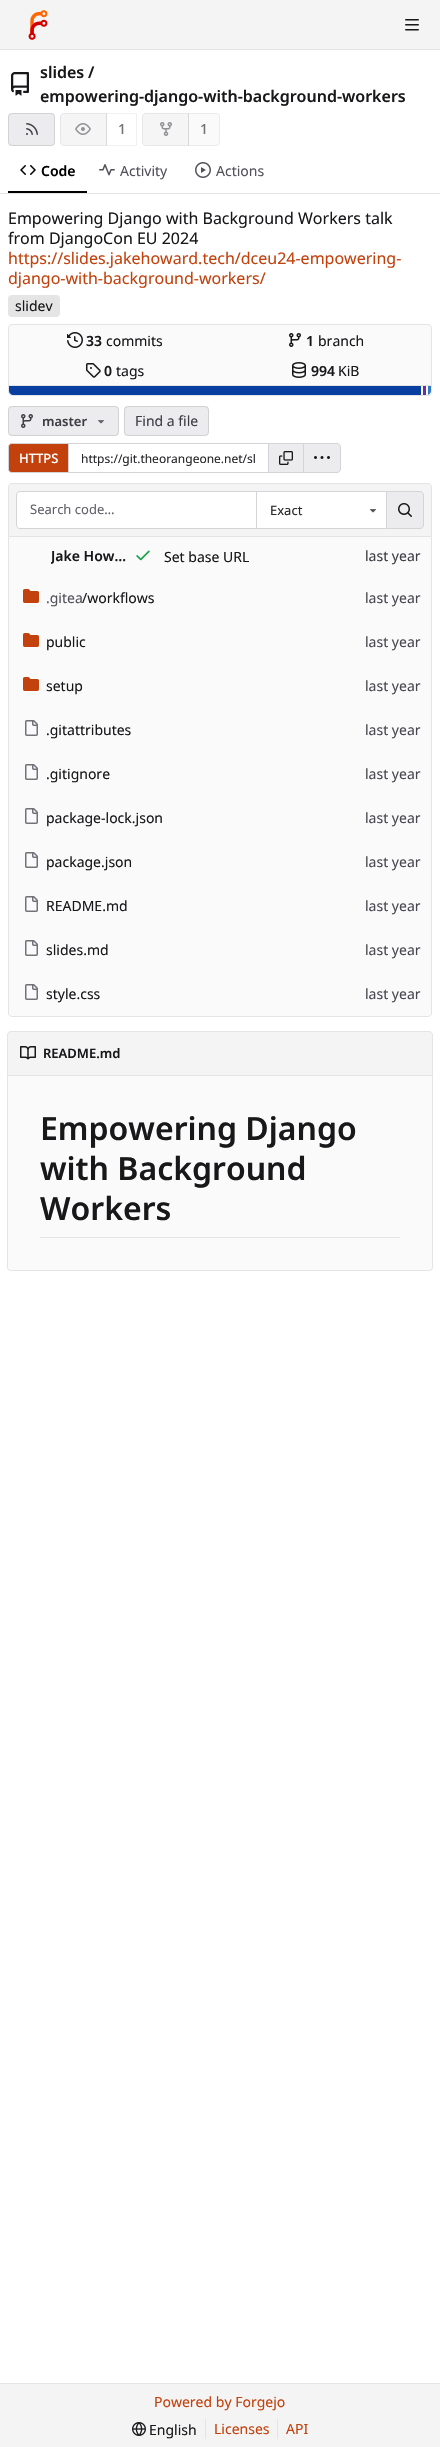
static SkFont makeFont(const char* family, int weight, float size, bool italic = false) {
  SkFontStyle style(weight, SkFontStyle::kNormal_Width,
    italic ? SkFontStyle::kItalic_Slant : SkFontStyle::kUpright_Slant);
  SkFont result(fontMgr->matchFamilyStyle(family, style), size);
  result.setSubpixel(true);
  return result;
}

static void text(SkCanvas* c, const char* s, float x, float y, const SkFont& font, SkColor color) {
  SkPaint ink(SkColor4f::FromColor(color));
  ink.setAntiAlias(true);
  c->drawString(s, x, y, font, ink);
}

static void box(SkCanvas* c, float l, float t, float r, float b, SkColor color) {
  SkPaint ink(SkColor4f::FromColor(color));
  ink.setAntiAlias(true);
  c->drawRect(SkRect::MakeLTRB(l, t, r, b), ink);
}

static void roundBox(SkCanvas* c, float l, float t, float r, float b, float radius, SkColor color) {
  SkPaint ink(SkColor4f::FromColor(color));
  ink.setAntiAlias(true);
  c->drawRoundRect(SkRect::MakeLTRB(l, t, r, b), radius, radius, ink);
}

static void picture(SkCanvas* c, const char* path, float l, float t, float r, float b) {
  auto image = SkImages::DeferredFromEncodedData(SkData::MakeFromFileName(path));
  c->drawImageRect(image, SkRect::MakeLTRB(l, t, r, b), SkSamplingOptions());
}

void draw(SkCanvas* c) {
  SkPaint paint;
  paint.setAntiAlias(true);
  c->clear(0xffffffff);
  box(c, 0, 0, 440, 49, 0xfff4f4f5);
  box(c, 0, 49, 440, 50, 0xffe4e4e7);
  picture(c, "img_01.png", 28, 10, 48, 40);
  picture(c, "img_02.png", 405, 19, 419, 31);
  picture(c, "img_03.png", 11, 72, 29, 96);
  SkFont face1 = makeFont("Noto Sans", 600, 16);
  text(c, "slides", 40, 78, face1, 0xff18181b);
  text(c, "/", 88, 78, face1, 0xff18181b);
  text(c, "empowering-django-with-background-workers", 40, 102, face1, 0xff18181b);
  roundBox(c, 8, 113, 55, 146, 4, 0xffececee);
  paint.setStyle(SkPaint::kStroke_Style);
  paint.setStrokeWidth(1);
  paint.setColor(0x1c000000);
  c->drawRoundRect(SkRect::MakeLTRB(8.5f, 113.5f, 54.5f, 145.5f), 3.5f, 3.5f, paint);
  picture(c, "img_04.png", 26, 123, 38, 135);
  paint.setStyle(SkPaint::kFill_Style);
  paint.setColor(0xfff5f5f6);
  c->drawPath(SkPathBuilder().moveTo(64, 113).lineTo(107, 113).lineTo(107, 146).lineTo(64, 146).cubicTo(62, 146, 60, 144, 60, 142).lineTo(60, 117).cubicTo(60, 115, 62, 113, 64, 113).close().detach(), paint);
  paint.setStyle(SkPaint::kStroke_Style);
  paint.setColor(0x1c737373);
  c->drawPath(SkPathBuilder().moveTo(64, 113.5f).lineTo(106.5f, 113.5f).lineTo(106.5f, 145.5f).lineTo(64, 145.5f).cubicTo(62, 145.5f, 60.5f, 144, 60.5f, 142).lineTo(60.5f, 117).cubicTo(60.5f, 115, 62, 113.5f, 64, 113.5f).close().detach(), paint);
  picture(c, "img_05.png", 75, 123, 91, 135);
  paint.setColor(0x0f000000);
  c->drawRect(SkRect::MakeLTRB(106.5f, 113.5f, 136.5f, 145.5f), paint);
  SkFont face2 = makeFont("Noto Sans", 500, 14);
  text(c, "1", 118, 134, face2, 0xff737373);
  paint.setStyle(SkPaint::kFill_Style);
  paint.setColor(0xfff5f5f6);
  c->drawPath(SkPathBuilder().moveTo(146, 113).lineTo(189, 113).lineTo(189, 146).lineTo(146, 146).cubicTo(144, 146, 142, 144, 142, 142).lineTo(142, 117).cubicTo(142, 115, 144, 113, 146, 113).close().detach(), paint);
  paint.setStyle(SkPaint::kStroke_Style);
  paint.setColor(0x1c737373);
  c->drawPath(SkPathBuilder().moveTo(146, 113.5f).lineTo(188.5f, 113.5f).lineTo(188.5f, 145.5f).lineTo(146, 145.5f).cubicTo(144, 145.5f, 142.5f, 144, 142.5f, 142).lineTo(142.5f, 117).cubicTo(142.5f, 115, 144, 113.5f, 146, 113.5f).close().detach(), paint);
  picture(c, "img_06.png", 160, 122, 172, 136);
  box(c, 188, 113, 220, 146, 0x0a737373);
  c->drawPath(SkPathBuilder().moveTo(188.5f, 113.5f).lineTo(216, 113.5f).cubicTo(218, 113.5f, 219.5f, 115, 219.5f, 117).lineTo(219.5f, 142).cubicTo(219.5f, 144, 218, 145.5f, 216, 145.5f).lineTo(188.5f, 145.5f).close().detach(), paint);
  text(c, "1", 200, 134, face2, 0xff737373);
  box(c, 8, 191, 87, 193, 0xff000000);
  picture(c, "img_07.png", 20, 165, 36, 175);
  SkFont face3 = makeFont("Noto Sans", 600, 14);
  text(c, "Code", 41, 176, face3, 0xff000000);
  picture(c, "img_08.png", 99, 164, 115, 176);
  SkFont face4 = makeFont("Noto Sans", 400, 14);
  text(c, "Activity", 120, 176, face4, 0xff52525b);
  picture(c, "img_09.png", 195, 162, 211, 178);
  text(c, "Actions", 216, 176, face4, 0xff52525b);
  box(c, 0, 193, 440, 194, 0xffe4e4e7);
  SkFont face5 = makeFont("Noto Sans", 400, 16);
  text(c, "Empowering Django with Background Workers talk", 8, 224, face5, 0xff18181b);
  text(c, "from DjangoCon EU 2024", 8, 244, face5, 0xff18181b);
  text(c, "https://slides.jakehoward.tech/dceu24-empowering-", 8, 264, face5, 0xffc2410c);
  text(c, "django-with-background-workers/", 8, 284, face5, 0xffc2410c);
  roundBox(c, 8, 295, 60, 317, 4, 0xffe5e5e5);
  text(c, "slidev", 15, 311, face4, 0xff18181b);
  paint.setStyle(SkPaint::kFill_Style);
  paint.setColor(0xfffafafa);
  c->drawRoundRect(SkRect::MakeLTRB(8.5f, 324.5f, 431.5f, 395.5f), 3.5f, 3.5f, paint);
  paint.setStyle(SkPaint::kStroke_Style);
  paint.setColor(0xffe4e4e7);
  c->drawRoundRect(SkRect::MakeLTRB(8.5f, 324.5f, 431.5f, 395.5f), 3.5f, 3.5f, paint);
  picture(c, "img_10.png", 67, 332, 83, 348);
  text(c, "33", 86, 346, face3, 0xff18181b);
  text(c, "commits", 106, 346, face4, 0xff18181b);
  picture(c, "img_11.png", 289, 333, 301, 347);
  text(c, "1", 306, 346, face3, 0xff18181b);
  text(c, "branch", 318, 346, face4, 0xff18181b);
  picture(c, "img_12.png", 86, 363, 101, 378);
  text(c, "0", 104, 376, face3, 0xff18181b);
  text(c, "tags", 116, 376, face4, 0xff18181b);
  picture(c, "img_13.png", 292, 362, 306, 378);
  text(c, "994", 311, 376, face3, 0xff18181b);
  text(c, "KiB", 338, 376, face4, 0xff18181b);
  box(c, 9, 385, 431, 386, 0xffe4e4e7);
  paint.setStyle(SkPaint::kFill_Style);
  paint.setColor(0xff083fa1);
  c->drawPath(SkPathBuilder().moveTo(9, 386).lineTo(421, 386).lineTo(421, 395).lineTo(13, 395).cubicTo(11, 395, 9, 393, 9, 391).close().detach(), paint);
  box(c, 423, 386, 426, 395, 0xff663399);
  c->save();
  c->clipPath(SkPathBuilder().moveTo(9, 386).lineTo(431, 386).lineTo(431, 391).cubicTo(431, 393, 429, 395, 427, 395).lineTo(13, 395).cubicTo(11, 395, 9, 393, 9, 391).close().detach(), true);
  box(c, 428, 386, 431, 395, 0xff3178c6);
  c->restore();
  roundBox(c, 8, 406, 119, 436, 4, 0xffececee);
  paint.setStyle(SkPaint::kStroke_Style);
  paint.setColor(0x1c000000);
  c->drawRoundRect(SkRect::MakeLTRB(8.5f, 406.5f, 118.5f, 435.5f), 3.5f, 3.5f, paint);
  picture(c, "img_14.png", 21, 414, 33, 428);
  SkFont face6 = makeFont("Noto Sans", 600, 13);
  text(c, "master", 42, 426, face6, 0xff3f3f46);
  picture(c, "img_15.png", 97, 420, 105, 424);
  roundBox(c, 124, 406, 209, 436, 4, 0xffececee);
  c->drawRoundRect(SkRect::MakeLTRB(124.5f, 406.5f, 208.5f, 435.5f), 3.5f, 3.5f, paint);
  text(c, "Find a file", 135, 426, face4, 0xff3f3f46);
  paint.setStyle(SkPaint::kFill_Style);
  paint.setColor(0xffc2410c);
  c->drawPath(SkPathBuilder().moveTo(12, 443.5f).lineTo(68.5f, 443.5f).lineTo(68.5f, 472.5f).lineTo(12, 472.5f).cubicTo(10, 472.5f, 8.5f, 471, 8.5f, 469).lineTo(8.5f, 447).cubicTo(8.5f, 445, 10, 443.5f, 12, 443.5f).close().detach(), paint);
  paint.setStyle(SkPaint::kStroke_Style);
  paint.setColor(0xffd4d4d8);
  c->drawPath(SkPathBuilder().moveTo(12, 443.5f).lineTo(68.5f, 443.5f).lineTo(68.5f, 472.5f).lineTo(12, 472.5f).cubicTo(10, 472.5f, 8.5f, 471, 8.5f, 469).lineTo(8.5f, 447).cubicTo(8.5f, 445, 10, 443.5f, 12, 443.5f).close().detach(), paint);
  SkFont face7 = makeFont("Noto Sans", 500, 13);
  text(c, "HTTPS", 19, 463, face7, 0xffffffff);
  box(c, 68, 443, 268, 444, 0xffd4d4d8);
  box(c, 68, 472, 268, 473, 0xffd4d4d8);
  SkFont face8 = makeFont("Noto Sans", 400, 12);
  text(c, "https://git.theorangeone.net/sl", 81, 463, face8, 0xff27272a);
  paint.setStyle(SkPaint::kFill_Style);
  paint.setColor(0xffececee);
  c->drawRect(SkRect::MakeLTRB(268.5f, 443.5f, 303.5f, 472.5f), paint);
  paint.setStyle(SkPaint::kStroke_Style);
  paint.setColor(0xffd4d4d8);
  c->drawRect(SkRect::MakeLTRB(268.5f, 443.5f, 303.5f, 472.5f), paint);
  picture(c, "img_16.png", 279, 451, 293, 465);
  paint.setStyle(SkPaint::kFill_Style);
  paint.setColor(0xffececee);
  c->drawPath(SkPathBuilder().moveTo(303.5f, 443.5f).lineTo(337, 443.5f).cubicTo(339, 443.5f, 340.5f, 445, 340.5f, 447).lineTo(340.5f, 469).cubicTo(340.5f, 471, 339, 472.5f, 337, 472.5f).lineTo(303.5f, 472.5f).close().detach(), paint);
  paint.setStyle(SkPaint::kStroke_Style);
  paint.setColor(0xffd4d4d8);
  c->drawPath(SkPathBuilder().moveTo(303.5f, 443.5f).lineTo(337, 443.5f).cubicTo(339, 443.5f, 340.5f, 445, 340.5f, 447).lineTo(340.5f, 469).cubicTo(340.5f, 471, 339, 472.5f, 337, 472.5f).lineTo(303.5f, 472.5f).close().detach(), paint);
  picture(c, "img_17.png", 314, 456, 330, 459);
  paint.setStyle(SkPaint::kFill_Style);
  paint.setColor(0xfff4f4f5);
  c->drawPath(SkPathBuilder().moveTo(12, 484).lineTo(428, 484).cubicTo(429.5f, 484, 431, 485.5f, 431, 487).lineTo(431, 536).lineTo(9, 536).lineTo(9, 487).cubicTo(9, 485.5f, 10.5f, 484, 12, 484).close().detach(), paint);
  paint.setColor(0xffe4e4e7);
  c->drawPath(SkPathBuilder(SkPathFillType::kEvenOdd).moveTo(12, 483).lineTo(428, 483).cubicTo(430, 483, 432, 485, 432, 487).lineTo(432, 536).lineTo(8, 536).lineTo(8, 487).cubicTo(8, 485, 10, 483, 12, 483).close().moveTo(12, 484).lineTo(428, 484).cubicTo(430, 484, 431, 485, 431, 487).lineTo(431, 536).lineTo(9, 536).lineTo(9, 487).cubicTo(9, 485, 10, 484, 12, 484).close().detach(), paint);
  paint.setColor(0xffffffff);
  c->drawPath(SkPathBuilder().moveTo(20, 491).lineTo(256, 491).lineTo(256, 529).lineTo(20, 529).cubicTo(18, 529, 16, 527, 16, 525).lineTo(16, 495).cubicTo(16, 493, 18, 491, 20, 491).close().detach(), paint);
  paint.setColor(0xffd4d4d8);
  c->drawPath(SkPathBuilder(SkPathFillType::kEvenOdd).moveTo(20, 491).lineTo(256, 491).lineTo(256, 529).lineTo(20, 529).cubicTo(18, 529, 16, 527, 16, 525).lineTo(16, 495).cubicTo(16, 493, 18, 491, 20, 491).close().moveTo(20, 492).lineTo(256, 492).lineTo(256, 528).lineTo(20, 528).cubicTo(18, 528, 17, 527, 17, 525).lineTo(17, 495).cubicTo(17, 493, 18, 492, 20, 492).close().detach(), paint);
  SkFont face9 = makeFont("Noto Sans", 400, 13);
  text(c, "Search code…", 30, 514, face9, 0xff61616a);
  box(c, 257, 492, 386, 528, 0xffffffff);
  box(c, 256, 491, 386, 492, 0xffd4d4d8);
  box(c, 256, 528, 386, 529, 0xffd4d4d8);
  box(c, 256, 491, 257, 529, 0xffd4d4d8);
  text(c, "Exact", 270, 515, face9, 0xff27272a);
  picture(c, "img_18.png", 369, 509, 377, 513);
  paint.setColor(0xffececee);
  c->drawPath(SkPathBuilder().moveTo(386.5f, 491.5f).lineTo(420, 491.5f).cubicTo(422, 491.5f, 423.5f, 493, 423.5f, 495).lineTo(423.5f, 525).cubicTo(423.5f, 527, 422, 528.5f, 420, 528.5f).lineTo(386.5f, 528.5f).close().detach(), paint);
  paint.setStyle(SkPaint::kStroke_Style);
  paint.setColor(0xffd4d4d8);
  c->drawPath(SkPathBuilder().moveTo(386.5f, 491.5f).lineTo(420, 491.5f).cubicTo(422, 491.5f, 423.5f, 493, 423.5f, 495).lineTo(423.5f, 525).cubicTo(423.5f, 527, 422, 528.5f, 420, 528.5f).lineTo(386.5f, 528.5f).close().detach(), paint);
  picture(c, "img_19.png", 398, 503, 412, 517);
  paint.setStyle(SkPaint::kFill_Style);
  paint.setColor(0xfffafafa);
  c->drawPath(SkPathBuilder().moveTo(8.5f, 536.5f).lineTo(431.5f, 536.5f).lineTo(431.5f, 1013).cubicTo(431.5f, 1015, 430, 1016.5f, 428, 1016.5f).lineTo(12, 1016.5f).cubicTo(10, 1016.5f, 8.5f, 1015, 8.5f, 1013).close().detach(), paint);
  paint.setStyle(SkPaint::kStroke_Style);
  paint.setColor(0xffe4e4e7);
  c->drawPath(SkPathBuilder().moveTo(8.5f, 536.5f).lineTo(431.5f, 536.5f).lineTo(431.5f, 1013).cubicTo(431.5f, 1015, 430, 1016.5f, 428, 1016.5f).lineTo(12, 1016.5f).cubicTo(10, 1016.5f, 8.5f, 1015, 8.5f, 1013).close().detach(), paint);
  c->save();
  c->clipRect(SkRect::MakeLTRB(51, 546, 131, 566));
  text(c, "Jake How…", 51, 561, face3, 0xff18181b);
  c->restore();
  picture(c, "img_20.png", 136, 550, 150, 561);
  text(c, "Set base URL", 164, 562, face4, 0xff18181b);
  text(c, "last year", 365, 561, face4, 0xff3f3f46);
  picture(c, "img_21.png", 23, 589, 39, 603);
  text(c, ".gitea", 46, 603, face4, 0xff52525b);
  text(c, "/workflows", 82, 603, face4, 0xff18181b);
  text(c, "last year", 365, 603, face4, 0xff484850);
  picture(c, "img_21.png", 23, 633, 39, 647);
  text(c, "public", 46, 647, face4, 0xff18181b);
  text(c, "last year", 365, 647, face4, 0xff484850);
  picture(c, "img_21.png", 23, 677, 39, 691);
  text(c, "setup", 46, 691, face4, 0xff18181b);
  text(c, "last year", 365, 691, face4, 0xff484850);
  picture(c, "img_22.png", 25, 720, 38, 736);
  text(c, ".gitattributes", 46, 735, face4, 0xff18181b);
  text(c, "last year", 365, 735, face4, 0xff484850);
  picture(c, "img_22.png", 25, 764, 38, 780);
  text(c, ".gitignore", 46, 779, face4, 0xff18181b);
  text(c, "last year", 365, 779, face4, 0xff484850);
  picture(c, "img_22.png", 25, 808, 38, 824);
  text(c, "package-lock.json", 46, 823, face4, 0xff18181b);
  text(c, "last year", 365, 823, face4, 0xff484850);
  picture(c, "img_22.png", 25, 852, 38, 868);
  text(c, "package.json", 46, 867, face4, 0xff18181b);
  text(c, "last year", 365, 867, face4, 0xff484850);
  picture(c, "img_22.png", 25, 896, 38, 912);
  text(c, "README.md", 46, 911, face4, 0xff18181b);
  text(c, "last year", 365, 911, face4, 0xff484850);
  picture(c, "img_22.png", 25, 940, 38, 956);
  text(c, "slides.md", 46, 955, face4, 0xff18181b);
  text(c, "last year", 365, 955, face4, 0xff484850);
  picture(c, "img_22.png", 25, 984, 38, 1000);
  text(c, "style.css", 46, 999, face4, 0xff18181b);
  text(c, "last year", 365, 999, face4, 0xff484850);
  paint.setStyle(SkPaint::kFill_Style);
  paint.setColor(0xfff4f4f5);
  c->drawPath(SkPathBuilder().moveTo(11, 1031.5f).lineTo(429, 1031.5f).cubicTo(431, 1031.5f, 432.5f, 1033, 432.5f, 1035).lineTo(432.5f, 1075.5f).lineTo(7.5f, 1075.5f).lineTo(7.5f, 1035).cubicTo(7.5f, 1033, 9, 1031.5f, 11, 1031.5f).close().detach(), paint);
  paint.setStyle(SkPaint::kStroke_Style);
  paint.setColor(0xffe4e4e7);
  c->drawPath(SkPathBuilder().moveTo(11, 1031.5f).lineTo(429, 1031.5f).cubicTo(431, 1031.5f, 432.5f, 1033, 432.5f, 1035).lineTo(432.5f, 1075.5f).lineTo(7.5f, 1075.5f).lineTo(7.5f, 1035).cubicTo(7.5f, 1033, 9, 1031.5f, 11, 1031.5f).close().detach(), paint);
  picture(c, "img_23.png", 20, 1046, 36, 1060);
  text(c, "README.md", 43, 1058, face6, 0xff18181b);
  paint.setStyle(SkPaint::kFill_Style);
  paint.setColor(0xfffafafa);
  c->drawPath(SkPathBuilder().moveTo(7, 1076).lineTo(433, 1076).lineTo(433, 1267).cubicTo(433, 1269, 431, 1271, 429, 1271).lineTo(11, 1271).cubicTo(9, 1271, 7, 1269, 7, 1267).close().detach(), paint);
  paint.setColor(0xffe4e4e7);
  c->drawPath(SkPathBuilder(SkPathFillType::kEvenOdd).moveTo(7, 1076).lineTo(433, 1076).lineTo(433, 1267).cubicTo(433, 1269, 431, 1271, 429, 1271).lineTo(11, 1271).cubicTo(9, 1271, 7, 1269, 7, 1267).close().moveTo(8, 1076).lineTo(432, 1076).lineTo(432, 1267).cubicTo(432, 1269, 431, 1270, 429, 1270).lineTo(11, 1270).cubicTo(9, 1270, 8, 1269, 8, 1267).close().detach(), paint);
  box(c, 40, 1237, 400, 1238, 0xffe4e4e7);
  SkFont face10 = makeFont("Noto Sans", 600, 32);
  text(c, "Empowering Django", 40, 1140, face10, 0xff18181b);
  text(c, "with Background", 40, 1180, face10, 0xff18181b);
  text(c, "Workers", 40, 1220, face10, 0xff18181b);
  box(c, 0, 2384, 440, 2447, 0xfff4f4f5);
  box(c, 0, 2383, 440, 2384, 0xffe4e4e7);
  text(c, "Powered by Forgejo", 154, 2407, face4, 0xffc2410c);
  picture(c, "img_24.png", 132, 2422, 146, 2436);
  text(c, "English", 149, 2435, face4, 0xff18181b);
  box(c, 205, 2419, 206, 2439, 0xffe4e4e7);
  text(c, "Licenses", 214, 2434, face4, 0xffc2410c);
  box(c, 277, 2419, 278, 2439, 0xffe4e4e7);
  text(c, "API", 286, 2434, face4, 0xffc2410c);
}
